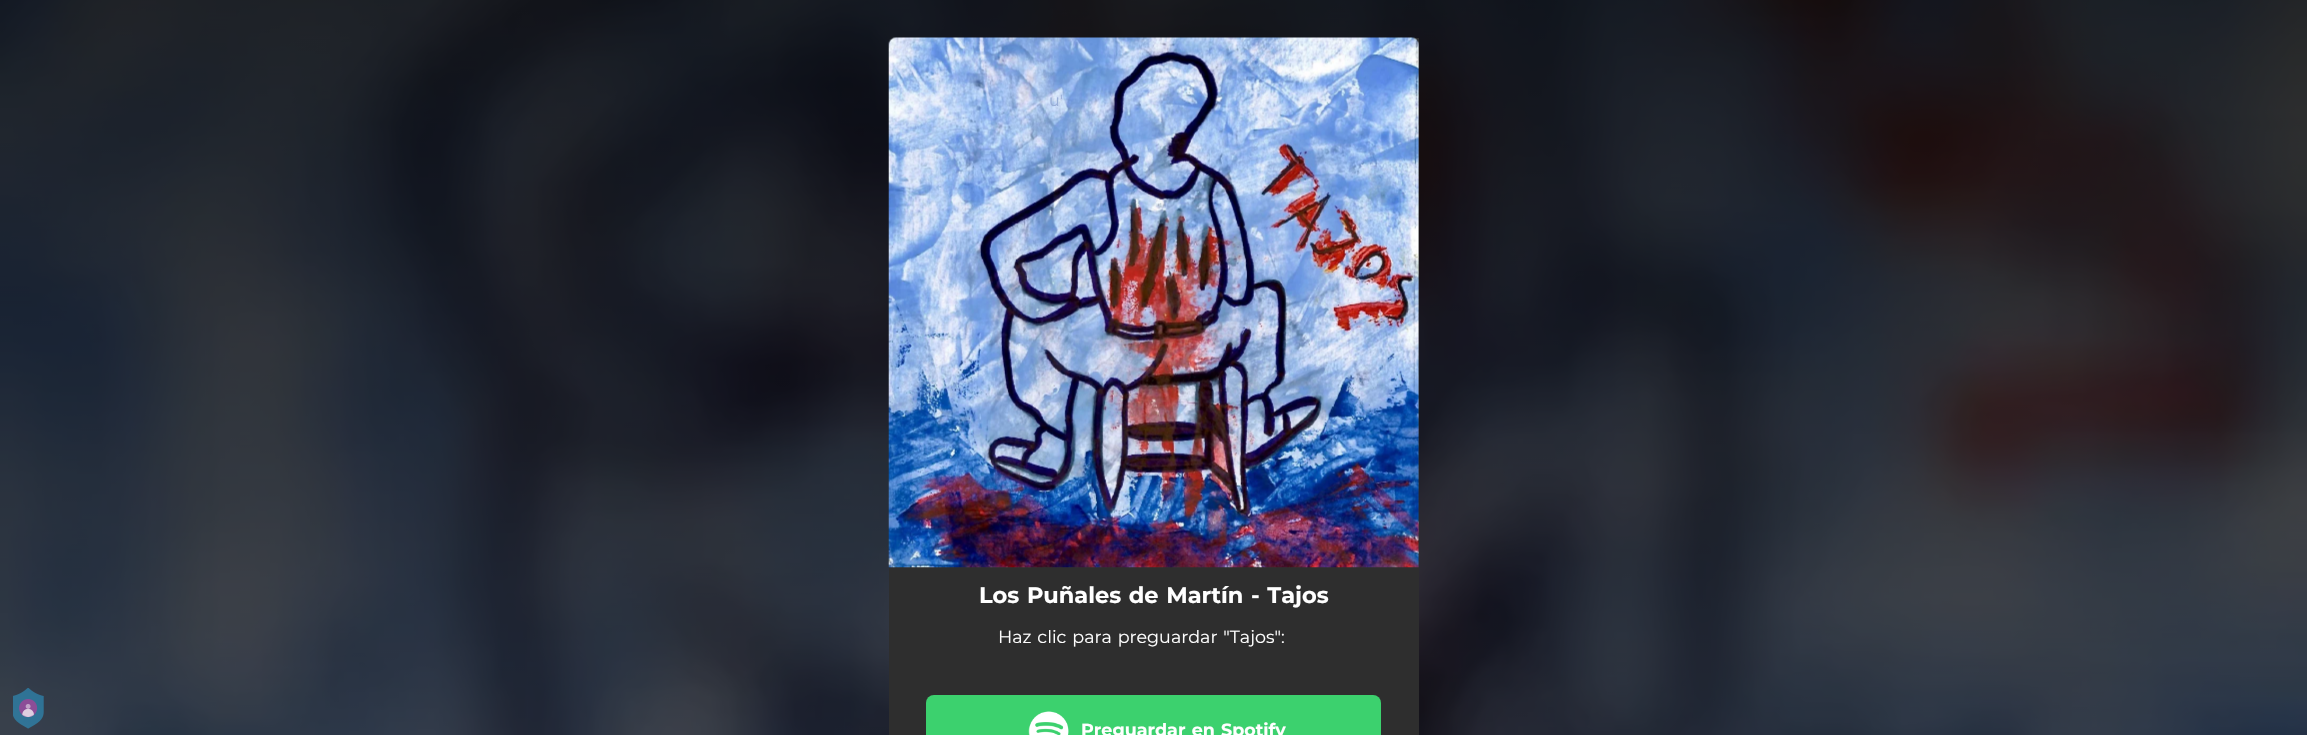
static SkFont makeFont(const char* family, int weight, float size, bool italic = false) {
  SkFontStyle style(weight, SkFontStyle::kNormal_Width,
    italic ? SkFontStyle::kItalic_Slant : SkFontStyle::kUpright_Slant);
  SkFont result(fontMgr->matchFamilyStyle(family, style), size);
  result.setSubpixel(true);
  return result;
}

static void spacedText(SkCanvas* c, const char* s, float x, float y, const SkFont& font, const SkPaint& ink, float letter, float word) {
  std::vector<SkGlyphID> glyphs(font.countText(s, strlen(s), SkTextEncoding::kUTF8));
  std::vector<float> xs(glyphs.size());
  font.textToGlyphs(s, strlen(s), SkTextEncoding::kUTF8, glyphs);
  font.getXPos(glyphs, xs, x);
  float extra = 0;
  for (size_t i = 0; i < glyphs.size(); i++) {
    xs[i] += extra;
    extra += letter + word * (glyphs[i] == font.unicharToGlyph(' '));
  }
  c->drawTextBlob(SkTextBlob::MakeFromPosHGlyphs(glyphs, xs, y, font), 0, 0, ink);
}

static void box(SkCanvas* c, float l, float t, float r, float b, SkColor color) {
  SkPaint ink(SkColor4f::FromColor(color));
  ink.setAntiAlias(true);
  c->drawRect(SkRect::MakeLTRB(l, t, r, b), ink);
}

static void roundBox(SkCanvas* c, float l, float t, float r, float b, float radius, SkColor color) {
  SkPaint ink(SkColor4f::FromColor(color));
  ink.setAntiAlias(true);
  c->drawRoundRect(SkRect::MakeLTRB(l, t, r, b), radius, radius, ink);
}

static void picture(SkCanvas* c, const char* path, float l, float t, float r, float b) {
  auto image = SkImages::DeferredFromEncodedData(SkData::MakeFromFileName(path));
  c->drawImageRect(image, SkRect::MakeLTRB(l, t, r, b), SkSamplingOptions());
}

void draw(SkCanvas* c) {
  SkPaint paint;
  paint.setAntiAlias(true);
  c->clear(0xffffffff);
  picture(c, "img_02.png", 0, 0, 2307, 735);
  picture(c, "img_01.png", 13, 688, 44, 729);
  paint.setColor(0xff2f2f2f);
  c->drawPath(SkPathBuilder().moveTo(897, 38).lineTo(1419, 38).lineTo(1419, 568).lineTo(897, 568).cubicTo(892.5f, 568, 889, 564.5f, 889, 560).lineTo(889, 46).cubicTo(889, 41.5f, 892.5f, 38, 897, 38).close().detach(), paint);
  picture(c, "img_03.png", 888, 37, 1419, 568);
  SkFont face1 = makeFont("Montserrat", 400, 16);
  paint.setColor(0xff98aed7);
  spacedText(c, "u'", 1049, 106, face1, paint, 0, 1.25f);
  box(c, 889, 568, 1419, 735, 0xff2e2e2e);
  SkFont face2 = makeFont("Montserrat", 700, 22.5f);
  paint.setColor(0xffffffff);
  spacedText(c, "Los Puñales de Martín - Tajos", 979, 603, face2, paint, 0, 1.25f);
  SkFont face3 = makeFont("Montserrat", 400, 17.5f);
  spacedText(c, "Haz clic para preguardar \"Tajos\":", 998, 643, face3, paint, 0, 1.25f);
  roundBox(c, 926, 695, 1381, 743, 8, 0xff3cd16e);
  picture(c, "img_04.png", 1028, 711, 1069, 735);
  SkFont face4 = makeFont("Montserrat", 700, 17.5f);
  spacedText(c, "Preguardar en Spotify", 1081, 736, face4, paint, 0, 1.25f);
}
